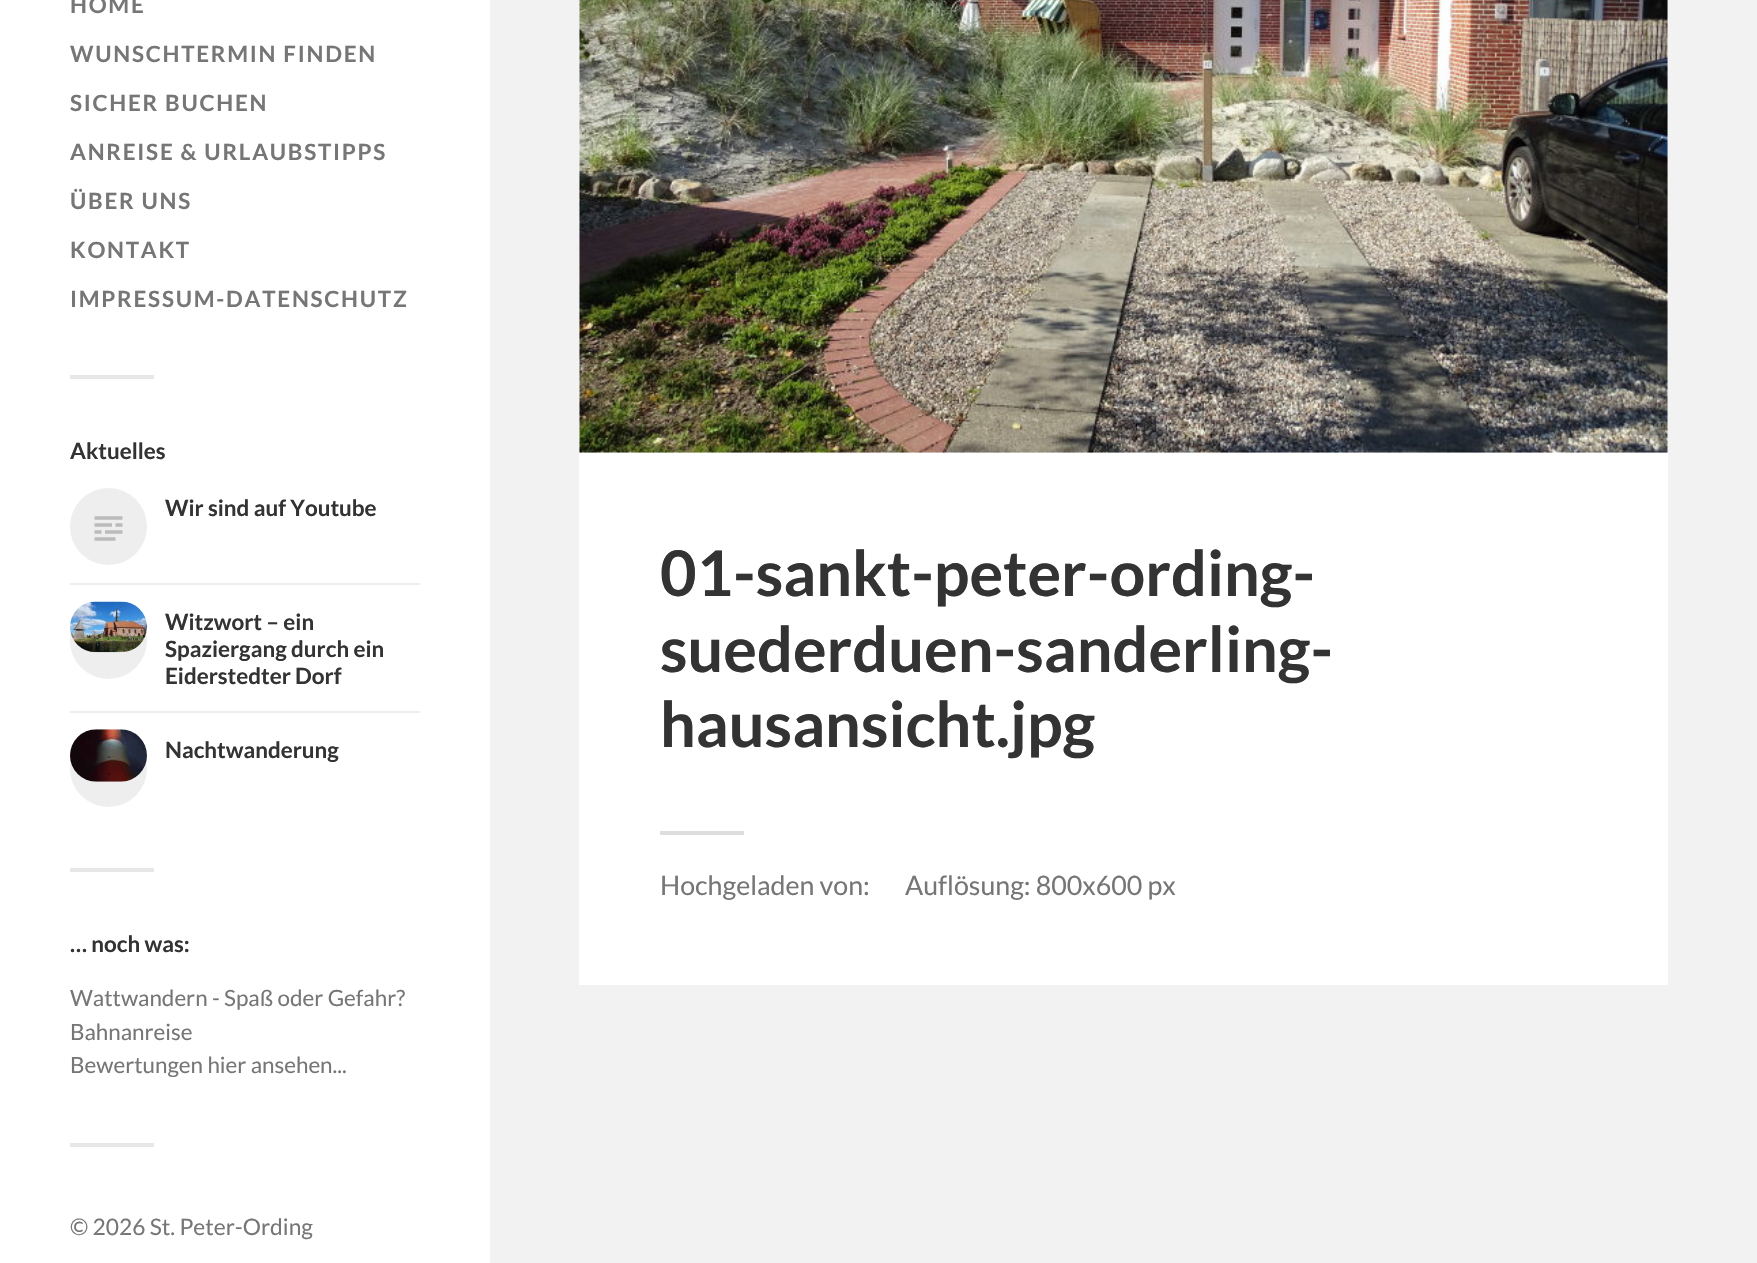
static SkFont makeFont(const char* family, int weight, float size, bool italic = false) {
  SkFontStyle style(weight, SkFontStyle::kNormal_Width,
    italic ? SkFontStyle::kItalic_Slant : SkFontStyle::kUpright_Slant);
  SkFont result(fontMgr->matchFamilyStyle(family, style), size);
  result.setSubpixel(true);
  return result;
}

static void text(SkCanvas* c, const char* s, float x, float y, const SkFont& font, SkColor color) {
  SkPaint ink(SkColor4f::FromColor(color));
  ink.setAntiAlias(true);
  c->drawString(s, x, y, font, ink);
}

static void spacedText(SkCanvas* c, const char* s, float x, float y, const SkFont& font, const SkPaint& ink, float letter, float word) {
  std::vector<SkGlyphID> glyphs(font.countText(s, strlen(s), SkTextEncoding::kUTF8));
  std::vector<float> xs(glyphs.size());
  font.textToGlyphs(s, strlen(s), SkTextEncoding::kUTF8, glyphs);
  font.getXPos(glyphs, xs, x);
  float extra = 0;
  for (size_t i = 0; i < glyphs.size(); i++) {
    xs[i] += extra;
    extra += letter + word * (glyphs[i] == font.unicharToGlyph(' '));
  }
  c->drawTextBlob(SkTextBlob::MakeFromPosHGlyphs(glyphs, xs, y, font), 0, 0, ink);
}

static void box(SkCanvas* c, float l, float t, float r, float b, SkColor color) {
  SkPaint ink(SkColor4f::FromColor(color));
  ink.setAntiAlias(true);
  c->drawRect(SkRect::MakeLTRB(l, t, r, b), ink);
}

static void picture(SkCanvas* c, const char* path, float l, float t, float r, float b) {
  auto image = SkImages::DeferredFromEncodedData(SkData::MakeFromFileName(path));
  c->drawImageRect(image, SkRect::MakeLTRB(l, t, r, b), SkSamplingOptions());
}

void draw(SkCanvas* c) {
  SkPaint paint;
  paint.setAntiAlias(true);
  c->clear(0xfff2f2f2);
  box(c, 0, 0, 490, 1263, 0xffffffff);
  SkFont face1 = makeFont("Lato", 700, 22.4f);
  paint.setColor(0xff767676);
  spacedText(c, "HOME", 70, 13, face1, paint, 1.75f, 0);
  spacedText(c, "WUNSCHTERMIN FINDEN", 70, 62, face1, paint, 1.75f, 0);
  spacedText(c, "SICHER BUCHEN", 70, 111, face1, paint, 1.75f, 0);
  spacedText(c, "ANREISE & URLAUBSTIPPS", 70, 160, face1, paint, 1.75f, 0);
  spacedText(c, "ÜBER UNS", 70, 209, face1, paint, 1.75f, 0);
  spacedText(c, "KONTAKT", 70, 258, face1, paint, 1.75f, 0);
  spacedText(c, "IMPRESSUM-DATENSCHUTZ", 70, 307, face1, paint, 1.75f, 0);
  box(c, 70, 375, 154, 379, 0xffe7e7e7);
  text(c, "Aktuelles", 70, 459, face1, 0xff333333);
  box(c, 70, 583, 420, 585, 0xffeeeeee);
  paint.setColor(0xffeeeeee);
  c->drawCircle(108.5f, 526.5f, 38.5f, paint);
  picture(c, "img_01.png", 94, 516, 123, 541);
  text(c, "Wir sind auf Youtube", 165, 516, face1, 0xff333333);
  box(c, 70, 711, 420, 713, 0xffeeeeee);
  c->drawCircle(108.5f, 640.5f, 38.5f, paint);
  picture(c, "img_02.png", 70, 601, 147, 653);
  text(c, "Witzwort – ein", 165, 630, face1, 0xff333333);
  text(c, "Spaziergang durch ein", 165, 657, face1, 0xff333333);
  text(c, "Eiderstedter Dorf", 165, 684, face1, 0xff333333);
  c->drawCircle(108.5f, 768.5f, 38.5f, paint);
  picture(c, "img_03.png", 70, 729, 147, 782);
  text(c, "Nachtwanderung", 165, 758, face1, 0xff333333);
  box(c, 70, 868, 154, 872, 0xffe7e7e7);
  text(c, "… noch was:", 70, 952, face1, 0xff333333);
  SkFont face2 = makeFont("Lato", 400, 22.4f);
  text(c, "Wattwandern - Spaß oder Gefahr?", 70, 1006, face2, 0xff767676);
  text(c, "Bahnanreise", 70, 1040, face2, 0xff767676);
  text(c, "Bewertungen hier ansehen...", 70, 1073, face2, 0xff767676);
  box(c, 70, 1143, 154, 1147, 0xffe7e7e7);
  SkFont face3 = makeFont("Lato", 400, 22.75f);
  text(c, "© 2026 St. Peter-Ording", 70, 1235, face3, 0xff767676);
  box(c, 579, 0, 1668, 985, 0xffffffff);
  picture(c, "img_04.png", 579, 0, 1668, 453);
  SkFont face4 = makeFont("Lato", 700, 63);
  text(c, "01-sankt-peter-ording-", 660, 596, face4, 0xff333333);
  text(c, "suederduen-sanderling-", 660, 672, face4, 0xff333333);
  text(c, "hausansicht.jpg", 660, 747, face4, 0xff333333);
  box(c, 660, 831, 744, 835, 0xffdddddd);
  SkFont face5 = makeFont("Lato", 400, 26.75f);
  text(c, "Hochgeladen von:", 660, 895, face5, 0xff767676);
  text(c, "Auflösung: 800x600 px", 905, 895, face5, 0xff767676);
}
